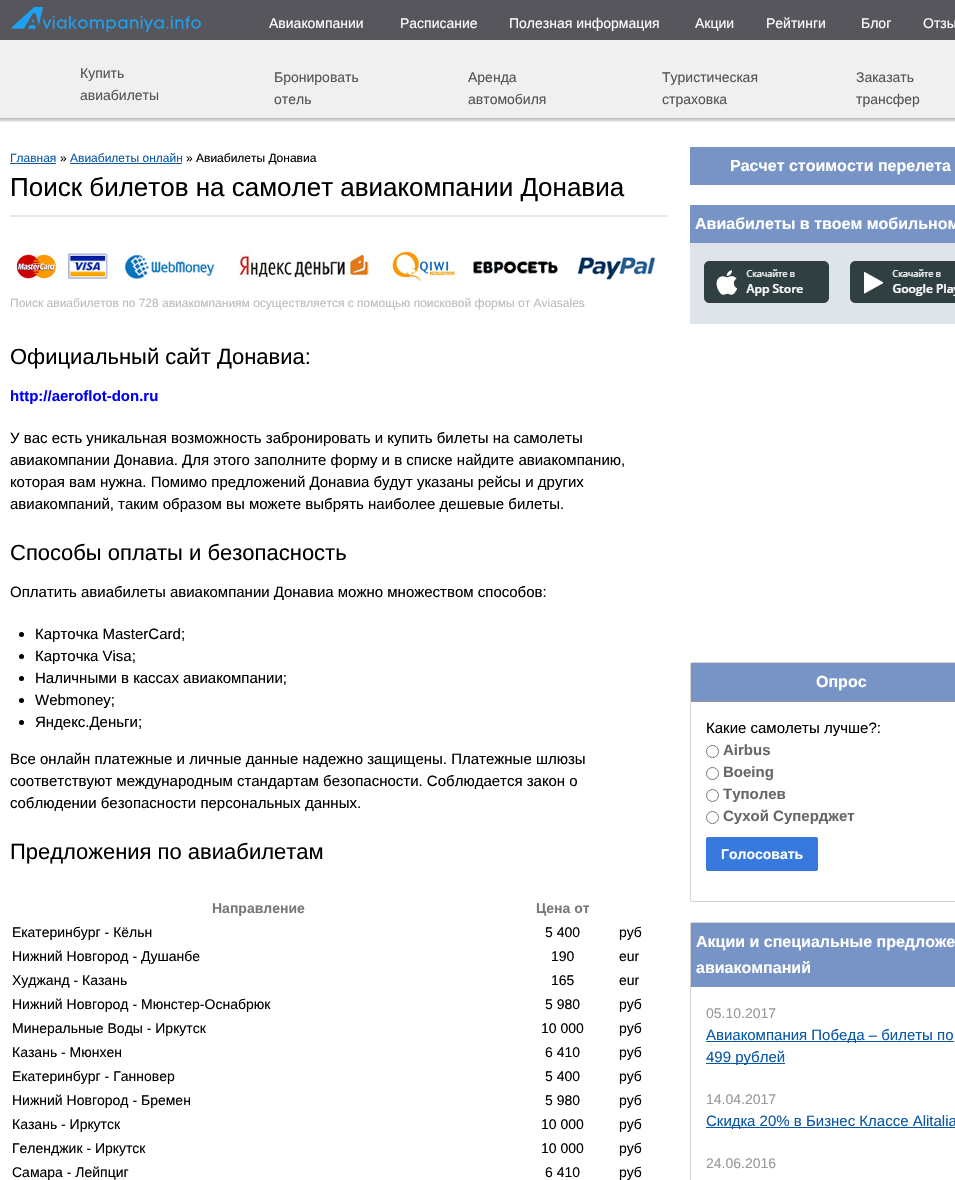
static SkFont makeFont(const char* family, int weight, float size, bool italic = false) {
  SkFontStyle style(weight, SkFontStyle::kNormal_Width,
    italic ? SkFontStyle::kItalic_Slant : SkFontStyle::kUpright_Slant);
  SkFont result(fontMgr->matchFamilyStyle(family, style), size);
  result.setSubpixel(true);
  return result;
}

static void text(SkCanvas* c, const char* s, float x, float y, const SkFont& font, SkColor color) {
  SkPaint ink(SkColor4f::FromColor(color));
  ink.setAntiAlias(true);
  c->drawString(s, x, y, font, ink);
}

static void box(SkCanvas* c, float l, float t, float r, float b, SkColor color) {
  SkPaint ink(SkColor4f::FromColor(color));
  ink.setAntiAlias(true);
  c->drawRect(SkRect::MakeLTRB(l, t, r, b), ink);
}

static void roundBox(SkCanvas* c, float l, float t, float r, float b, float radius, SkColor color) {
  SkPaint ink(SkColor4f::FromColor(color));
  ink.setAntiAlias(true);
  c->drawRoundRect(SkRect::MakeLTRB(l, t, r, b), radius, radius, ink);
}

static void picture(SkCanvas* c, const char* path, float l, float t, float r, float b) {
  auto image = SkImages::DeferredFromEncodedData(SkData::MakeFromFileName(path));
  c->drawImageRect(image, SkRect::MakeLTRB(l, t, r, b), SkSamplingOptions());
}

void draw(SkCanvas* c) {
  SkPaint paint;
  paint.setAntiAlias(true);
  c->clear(0xffffffff);
  picture(c, "img_01.png", 0, 0, 955, 122);
  picture(c, "img_02.png", 10, 7, 201, 32);
  SkFont face1 = makeFont("Liberation Sans", 400, 14);
  text(c, "Авиакомпании", 269, 28, face1, 0xffffffff);
  text(c, "Расписание", 400, 28, face1, 0xffffffff);
  text(c, "Полезная информация", 509, 28, face1, 0xffffffff);
  text(c, "Акции", 695, 28, face1, 0xffffffff);
  text(c, "Рейтинги", 766, 28, face1, 0xffffffff);
  text(c, "Блог", 861, 28, face1, 0xffffffff);
  text(c, "Отзы", 923, 28, face1, 0xffffffff);
  text(c, "Купить", 80, 78, face1, 0xff535353);
  text(c, "авиабилеты", 80, 100, face1, 0xff535353);
  text(c, "Бронировать", 274, 82, face1, 0xff535353);
  text(c, "отель", 274, 104, face1, 0xff535353);
  text(c, "Аренда", 468, 82, face1, 0xff535353);
  text(c, "автомобиля", 468, 104, face1, 0xff535353);
  text(c, "Туристическая", 662, 82, face1, 0xff535353);
  text(c, "страховка", 662, 104, face1, 0xff535353);
  text(c, "Заказать", 856, 82, face1, 0xff535353);
  text(c, "трансфер", 856, 104, face1, 0xff535353);
  SkFont face2 = makeFont("Liberation Sans", 400, 12);
  text(c, "Главная", 10, 162, face2, 0xff0857a6);
  box(c, 10, 163, 56, 164, 0xff0857a6);
  text(c, "»", 60, 162, face2, 0xff000000);
  text(c, "Авиабилеты онлайн", 70, 162, face2, 0xff0857a6);
  box(c, 70, 163, 182, 164, 0xff0857a6);
  text(c, "» Авиабилеты Донавиа", 186, 162, face2, 0xff000000);
  SkFont face3 = makeFont("Liberation Sans", 400, 26);
  text(c, "Поиск билетов на самолет авиакомпании Донавиа", 10, 196, face3, 0xff000000);
  box(c, 10, 215, 667, 217, 0xffe7e7e7);
  picture(c, "img_03.png", 16, 249, 57, 281);
  picture(c, "img_04.png", 67, 249, 108, 281);
  picture(c, "img_05.png", 124, 250, 215, 281);
  picture(c, "img_06.png", 239, 249, 370, 281);
  picture(c, "img_07.png", 392, 249, 456, 282);
  picture(c, "img_08.png", 473, 260, 558, 274);
  picture(c, "img_09.png", 577, 257, 655, 280);
  text(c, "Поиск авиабилетов по 728 авиакомпаниям осуществляется с помощью поисковой формы от Aviasales", 10, 307, face2, 0xffbbbbbb);
  SkFont face4 = makeFont("Liberation Sans", 400, 22);
  text(c, "Официальный сайт Донавиа:", 10, 364, face4, 0xff000000);
  SkFont face5 = makeFont("Liberation Sans", 700, 15);
  text(c, "http://aeroflot-don.ru", 10, 401, face5, 0xff0000fa);
  SkFont face6 = makeFont("Liberation Sans", 400, 15);
  text(c, "У вас есть уникальная возможность забронировать и купить билеты на самолеты", 10, 443, face6, 0xff000000);
  text(c, "авиакомпании Донавиа. Для этого заполните форму и в списке найдите авиакомпанию,", 10, 465, face6, 0xff000000);
  text(c, "которая вам нужна. Помимо предложений Донавиа будут указаны рейсы и других", 10, 487, face6, 0xff000000);
  text(c, "авиакомпаний, таким образом вы можете выбрять наиболее дешевые билеты.", 10, 509, face6, 0xff000000);
  text(c, "Способы оплаты и безопасность", 10, 560, face4, 0xff000000);
  text(c, "Оплатить авиабилеты авиакомпании Донавиа можно множеством способов:", 10, 597, face6, 0xff000000);
  paint.setColor(0xff000000);
  c->drawCircle(21.5f, 634.5f, 2.5f, paint);
  text(c, "Карточка MasterCard;", 35, 639, face6, 0xff000000);
  c->drawCircle(21.5f, 656.5f, 2.5f, paint);
  text(c, "Карточка Visa;", 35, 661, face6, 0xff000000);
  c->drawCircle(21.5f, 678.5f, 2.5f, paint);
  text(c, "Наличными в кассах авиакомпании;", 35, 683, face6, 0xff000000);
  c->drawCircle(21.5f, 700.5f, 2.5f, paint);
  text(c, "Webmoney;", 35, 705, face6, 0xff000000);
  c->drawCircle(21.5f, 722.5f, 2.5f, paint);
  text(c, "Яндекс.Деньги;", 35, 727, face6, 0xff000000);
  text(c, "Все онлайн платежные и личные данные надежно защищены. Платежные шлюзы", 10, 764, face6, 0xff000000);
  text(c, "соответствуют международным стандартам безопасности. Соблюдается закон о", 10, 786, face6, 0xff000000);
  text(c, "соблюдении безопасности персональных данных.", 10, 808, face6, 0xff000000);
  text(c, "Предложения по авиабилетам", 10, 859, face4, 0xff000000);
  SkFont face7 = makeFont("Liberation Sans", 700, 14);
  text(c, "Направление", 212, 913, face7, 0xff787878);
  text(c, "Цена от", 536, 913, face7, 0xff787878);
  text(c, "Екатеринбург - Кёльн", 12, 937, face1, 0xff000000);
  text(c, "5 400", 545, 937, face1, 0xff000000);
  text(c, "руб", 619, 937, face1, 0xff000000);
  text(c, "Нижний Новгород - Душанбе", 12, 961, face1, 0xff000000);
  text(c, "190", 551, 961, face1, 0xff000000);
  text(c, "eur", 619, 961, face1, 0xff000000);
  text(c, "Худжанд - Казань", 12, 985, face1, 0xff000000);
  text(c, "165", 551, 985, face1, 0xff000000);
  text(c, "eur", 619, 985, face1, 0xff000000);
  text(c, "Нижний Новгород - Мюнстер-Оснабрюк", 12, 1009, face1, 0xff000000);
  text(c, "5 980", 545, 1009, face1, 0xff000000);
  text(c, "руб", 619, 1009, face1, 0xff000000);
  text(c, "Минеральные Воды - Иркутск", 12, 1033, face1, 0xff000000);
  text(c, "10 000", 541, 1033, face1, 0xff000000);
  text(c, "руб", 619, 1033, face1, 0xff000000);
  text(c, "Казань - Мюнхен", 12, 1057, face1, 0xff000000);
  text(c, "6 410", 545, 1057, face1, 0xff000000);
  text(c, "руб", 619, 1057, face1, 0xff000000);
  text(c, "Екатеринбург - Ганновер", 12, 1081, face1, 0xff000000);
  text(c, "5 400", 545, 1081, face1, 0xff000000);
  text(c, "руб", 619, 1081, face1, 0xff000000);
  text(c, "Нижний Новгород - Бремен", 12, 1105, face1, 0xff000000);
  text(c, "5 980", 545, 1105, face1, 0xff000000);
  text(c, "руб", 619, 1105, face1, 0xff000000);
  text(c, "Казань - Иркутск", 12, 1129, face1, 0xff000000);
  text(c, "10 000", 541, 1129, face1, 0xff000000);
  text(c, "руб", 619, 1129, face1, 0xff000000);
  text(c, "Геленджик - Иркутск", 12, 1153, face1, 0xff000000);
  text(c, "10 000", 541, 1153, face1, 0xff000000);
  text(c, "руб", 619, 1153, face1, 0xff000000);
  text(c, "Самара - Лейпциг", 12, 1177, face1, 0xff000000);
  text(c, "6 410", 545, 1177, face1, 0xff000000);
  text(c, "руб", 619, 1177, face1, 0xff000000);
  paint.setColor(0xff7894c7);
  c->drawPath(SkPathBuilder().moveTo(691, 147).lineTo(955, 147).cubicTo(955.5f, 147, 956, 147.5f, 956, 148).lineTo(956, 185).lineTo(690, 185).lineTo(690, 148).cubicTo(690, 147.5f, 690.5f, 147, 691, 147).close().detach(), paint);
  SkFont face8 = makeFont("Liberation Sans", 700, 16);
  text(c, "Расчет стоимости перелета", 730, 171, face8, 0xffffffff);
  roundBox(c, 690, 205, 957, 324, 2, 0xffdee4ea);
  c->drawPath(SkPathBuilder().moveTo(691, 205).lineTo(955, 205).cubicTo(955.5f, 205, 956, 205.5f, 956, 206).lineTo(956, 243).lineTo(690, 243).lineTo(690, 206).cubicTo(690, 205.5f, 690.5f, 205, 691, 205).close().detach(), paint);
  text(c, "Авиабилеты в твоем мобильном", 695, 229, face8, 0xffffffff);
  picture(c, "img_10.png", 704, 261, 829, 303);
  picture(c, "img_11.png", 850, 261, 955, 303);
  paint.setStyle(SkPaint::kStroke_Style);
  paint.setStrokeWidth(1);
  paint.setColor(0xffd4d4d4);
  c->drawRoundRect(SkRect::MakeLTRB(690.5f, 662.5f, 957.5f, 901.5f), 1.5f, 1.5f, paint);
  paint.setStyle(SkPaint::kFill_Style);
  paint.setColor(0xff7894c7);
  c->drawPath(SkPathBuilder().moveTo(692, 663).lineTo(955, 663).cubicTo(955.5f, 663, 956, 663.5f, 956, 664).lineTo(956, 702).lineTo(691, 702).lineTo(691, 664).cubicTo(691, 663.5f, 691.5f, 663, 692, 663).close().detach(), paint);
  box(c, 691, 701, 955, 702, 0xff999999);
  text(c, "Опрос", 816, 687, face8, 0xffffffff);
  text(c, "Какие самолеты лучше?:", 706, 733, face6, 0xff000000);
  paint.setStyle(SkPaint::kStroke_Style);
  paint.setColor(0xff767676);
  c->drawCircle(712.5f, 751.5f, 6, paint);
  text(c, "Airbus", 723, 755, face5, 0xff676767);
  c->drawCircle(712.5f, 773.5f, 6, paint);
  text(c, "Boeing", 723, 777, face5, 0xff676767);
  c->drawCircle(712.5f, 795.5f, 6, paint);
  text(c, "Туполев", 723, 799, face5, 0xff676767);
  c->drawCircle(712.5f, 817.5f, 6, paint);
  text(c, "Сухой Суперджет", 723, 821, face5, 0xff676767);
  roundBox(c, 706, 837, 818, 871, 2, 0xff3779dd);
  text(c, "Голосовать", 721, 859, face7, 0xffffffff);
  paint.setColor(0xffd4d4d4);
  c->drawRoundRect(SkRect::MakeLTRB(690.5f, 922.5f, 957.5f, 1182.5f), 1.5f, 1.5f, paint);
  paint.setStyle(SkPaint::kFill_Style);
  paint.setColor(0xff7894c7);
  c->drawPath(SkPathBuilder().moveTo(692, 923).lineTo(955, 923).cubicTo(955.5f, 923, 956, 923.5f, 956, 924).lineTo(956, 987).lineTo(691, 987).lineTo(691, 924).cubicTo(691, 923.5f, 691.5f, 923, 692, 923).close().detach(), paint);
  text(c, "Акции и специальные предложе", 696, 947, face8, 0xffffffff);
  text(c, "авиакомпаний", 696, 973, face8, 0xffffffff);
  text(c, "05.10.2017", 706, 1018, face1, 0xff999999);
  box(c, 706, 1041, 954, 1042, 0xff0857a6);
  text(c, "Авиакомпания Победа – билеты по", 706, 1040, face6, 0xff0857a6);
  box(c, 706, 1063, 785, 1064, 0xff0857a6);
  text(c, "499 рублей", 706, 1062, face6, 0xff0857a6);
  text(c, "14.04.2017", 706, 1104, face1, 0xff999999);
  box(c, 706, 1127, 955, 1128, 0xff0857a6);
  text(c, "Скидка 20% в Бизнес Классе Alitalia", 706, 1126, face6, 0xff0857a6);
  text(c, "24.06.2016", 706, 1168, face1, 0xff999999);
}
